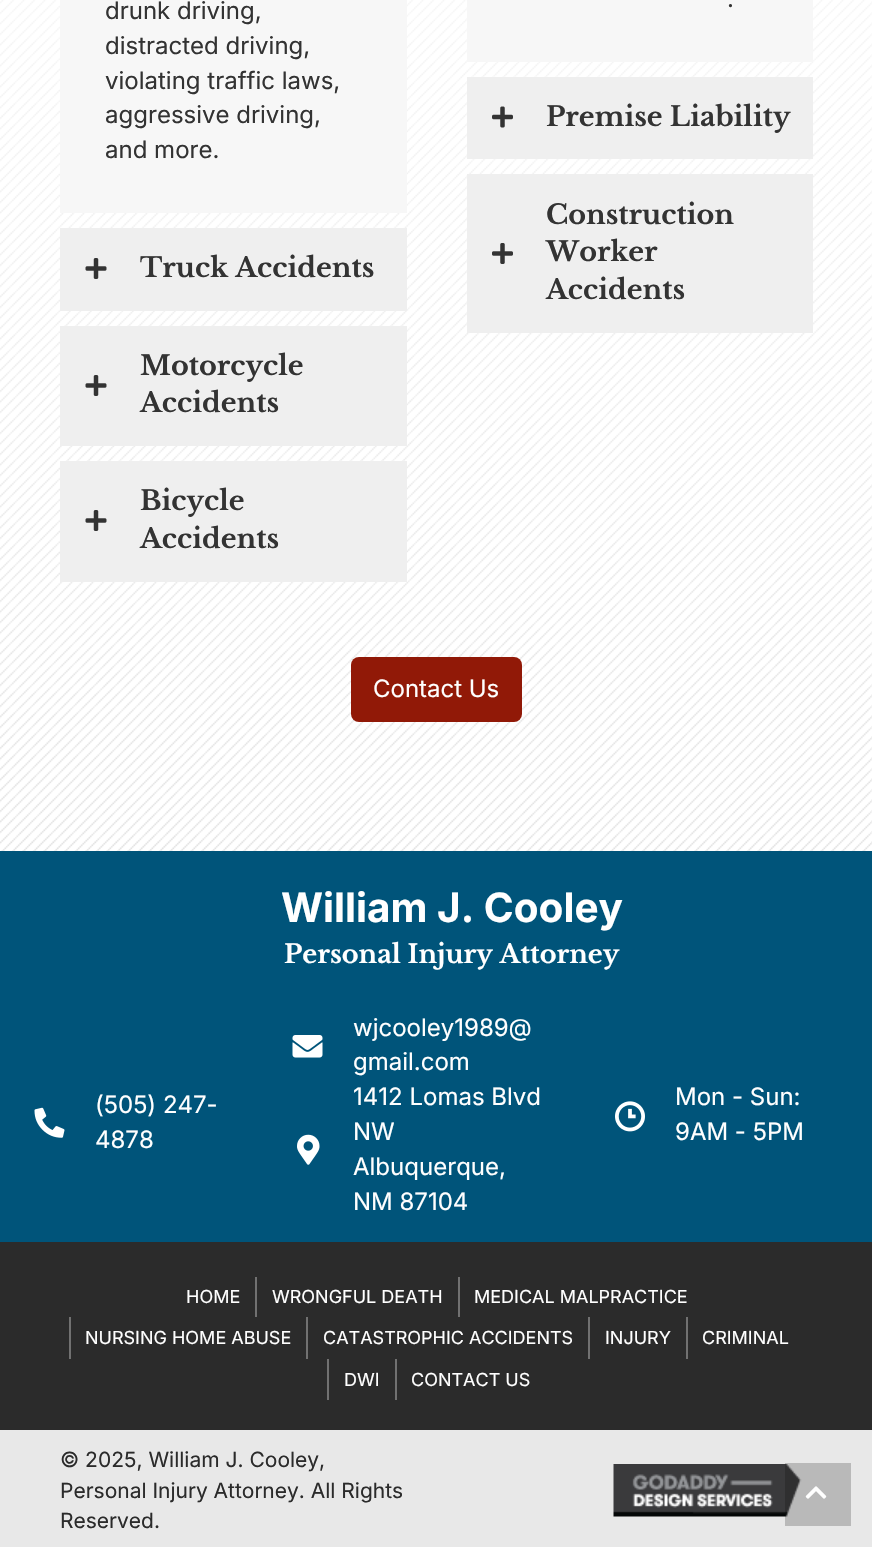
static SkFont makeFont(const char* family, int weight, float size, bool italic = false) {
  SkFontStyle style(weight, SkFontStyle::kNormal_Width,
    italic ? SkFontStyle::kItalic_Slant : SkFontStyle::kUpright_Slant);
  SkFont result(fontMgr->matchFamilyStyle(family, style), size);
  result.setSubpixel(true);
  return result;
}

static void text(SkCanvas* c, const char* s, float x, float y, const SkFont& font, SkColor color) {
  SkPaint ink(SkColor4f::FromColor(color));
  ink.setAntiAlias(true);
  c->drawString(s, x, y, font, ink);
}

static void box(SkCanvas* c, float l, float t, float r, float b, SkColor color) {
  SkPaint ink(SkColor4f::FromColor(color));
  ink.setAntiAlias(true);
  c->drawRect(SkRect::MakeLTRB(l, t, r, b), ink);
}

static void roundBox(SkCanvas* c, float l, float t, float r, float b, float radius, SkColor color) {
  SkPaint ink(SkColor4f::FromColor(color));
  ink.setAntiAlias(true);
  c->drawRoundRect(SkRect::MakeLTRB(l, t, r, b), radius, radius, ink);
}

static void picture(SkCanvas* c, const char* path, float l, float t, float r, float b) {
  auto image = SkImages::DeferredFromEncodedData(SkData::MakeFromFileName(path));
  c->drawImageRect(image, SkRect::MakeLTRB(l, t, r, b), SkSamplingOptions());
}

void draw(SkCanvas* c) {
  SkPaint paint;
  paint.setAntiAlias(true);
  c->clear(0xffffffff);
  picture(c, "img_01.png", 0, 0, 872, 851);
  {
    const SkColor colors[] = {0xffffffff, 0xd6ffffff};
    const float stops[] = {0.42f, 1};
    const SkPoint ends[] = {{436, -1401}, {437, 851}};
    paint.setShader(SkGradientShader::MakeLinear(ends, colors, stops, 2, SkTileMode::kClamp));
    paint.setAlpha(255);
  }
  c->drawRect(SkRect::MakeLTRB(0, 0, 872, 851), paint);
  box(c, 60, 0, 407, 213, 0xfff7f7f7);
  SkFont face1 = makeFont("Inter", 400, 24);
  text(c, "drunk driving,", 105, 19, face1, 0xff333333);
  text(c, "distracted driving,", 105, 54, face1, 0xff333333);
  text(c, "violating traffic laws,", 105, 89, face1, 0xff333333);
  text(c, "aggressive driving,", 105, 123, face1, 0xff333333);
  text(c, "and more.", 105, 158, face1, 0xff333333);
  box(c, 60, 228, 407, 311, 0xffefefef);
  picture(c, "img_02.png", 85, 258, 107, 279);
  SkFont face2 = makeFont("Libre Baskerville", 700, 27);
  text(c, "Truck Accidents", 140, 277, face2, 0xff333333);
  box(c, 60, 326, 407, 446, 0xffefefef);
  picture(c, "img_02.png", 85, 375, 107, 396);
  text(c, "Motorcycle", 140, 375, face2, 0xff333333);
  text(c, "Accidents", 140, 412, face2, 0xff333333);
  box(c, 60, 461, 407, 582, 0xffefefef);
  picture(c, "img_02.png", 85, 510, 107, 531);
  text(c, "Bicycle", 140, 510, face2, 0xff333333);
  text(c, "Accidents", 140, 548, face2, 0xff333333);
  box(c, 467, 0, 813, 62, 0xfff7f7f7);
  text(c, ".", 727, 7, face1, 0xff333333);
  box(c, 467, 77, 813, 159, 0xffefefef);
  picture(c, "img_03.png", 492, 106, 513, 128);
  text(c, "Premise Liability", 546, 126, face2, 0xff333333);
  box(c, 467, 174, 813, 333, 0xffefefef);
  picture(c, "img_04.png", 492, 243, 513, 264);
  text(c, "Construction", 546, 224, face2, 0xff333333);
  text(c, "Worker", 546, 261, face2, 0xff333333);
  text(c, "Accidents", 546, 299, face2, 0xff333333);
  roundBox(c, 351, 657, 522, 722, 8, 0xff911907);
  text(c, "Contact Us", 373, 697, face1, 0xffffffff);
  box(c, 0, 851, 872, 1242, 0xff00547a);
  SkFont face3 = makeFont("Inter", 700, 40.5f);
  text(c, "William J. Cooley", 281, 922, face3, 0xffffffff);
  SkFont face4 = makeFont("Libre Baskerville", 700, 25.5f);
  text(c, "Personal Injury Attorney", 284, 963, face4, 0xffffffff);
  picture(c, "img_05.png", 34, 1107, 65, 1138);
  text(c, "(505) 247-", 95, 1113, face1, 0xffffffff);
  text(c, "4878", 95, 1148, face1, 0xffffffff);
  picture(c, "img_06.png", 292, 1035, 323, 1058);
  text(c, "wjcooley1989@", 353, 1036, face1, 0xffffffff);
  text(c, "gmail.com", 353, 1070, face1, 0xffffffff);
  picture(c, "img_07.png", 297, 1134, 320, 1165);
  text(c, "1412 Lomas Blvd", 353, 1105, face1, 0xffffffff);
  text(c, "NW", 353, 1140, face1, 0xffffffff);
  text(c, "Albuquerque,", 353, 1175, face1, 0xffffffff);
  text(c, "NM 87104", 353, 1210, face1, 0xffffffff);
  picture(c, "img_08.png", 615, 1101, 645, 1132);
  text(c, "Mon - Sun:", 675, 1105, face1, 0xffffffff);
  text(c, "9AM - 5PM", 675, 1140, face1, 0xffffffff);
  box(c, 0, 1242, 872, 1430, 0xff2b2b2b);
  SkFont face5 = makeFont("Inter", 400, 18);
  text(c, "HOME", 186, 1303, face5, 0xffffffff);
  box(c, 255, 1277, 257, 1317, 0xff717171);
  text(c, "WRONGFUL DEATH", 272, 1303, face5, 0xffffffff);
  box(c, 458, 1277, 460, 1317, 0xff717171);
  text(c, "MEDICAL MALPRACTICE", 474, 1303, face5, 0xffffffff);
  box(c, 69, 1317, 71, 1359, 0xff717171);
  text(c, "NURSING HOME ABUSE", 85, 1344, face5, 0xffffffff);
  box(c, 306, 1317, 308, 1359, 0xff717171);
  text(c, "CATASTROPHIC ACCIDENTS", 323, 1344, face5, 0xffffffff);
  box(c, 588, 1317, 590, 1359, 0xff717171);
  text(c, "INJURY", 605, 1344, face5, 0xffffffff);
  box(c, 686, 1317, 688, 1359, 0xff717171);
  text(c, "CRIMINAL", 702, 1344, face5, 0xffffffff);
  box(c, 327, 1359, 329, 1400, 0xff717171);
  text(c, "DWI", 344, 1386, face5, 0xffffffff);
  box(c, 395, 1359, 397, 1400, 0xff717171);
  text(c, "CONTACT US", 411, 1386, face5, 0xffffffff);
  box(c, 0, 1430, 872, 1547, 0xffe8e8e8);
  SkFont face6 = makeFont("Inter", 400, 21);
  text(c, "© 2025, William J. Cooley,", 60, 1467, face6, 0xff2b2b2b);
  text(c, "Personal Injury Attorney. All Rights", 60, 1498, face6, 0xff2b2b2b);
  text(c, "Reserved.", 60, 1528, face6, 0xff2b2b2b);
  picture(c, "img_09.png", 613, 1464, 802, 1517);
  box(c, 785, 1463, 851, 1526, 0x33000000);
  picture(c, "img_10.png", 805, 1486, 827, 1499);
}
